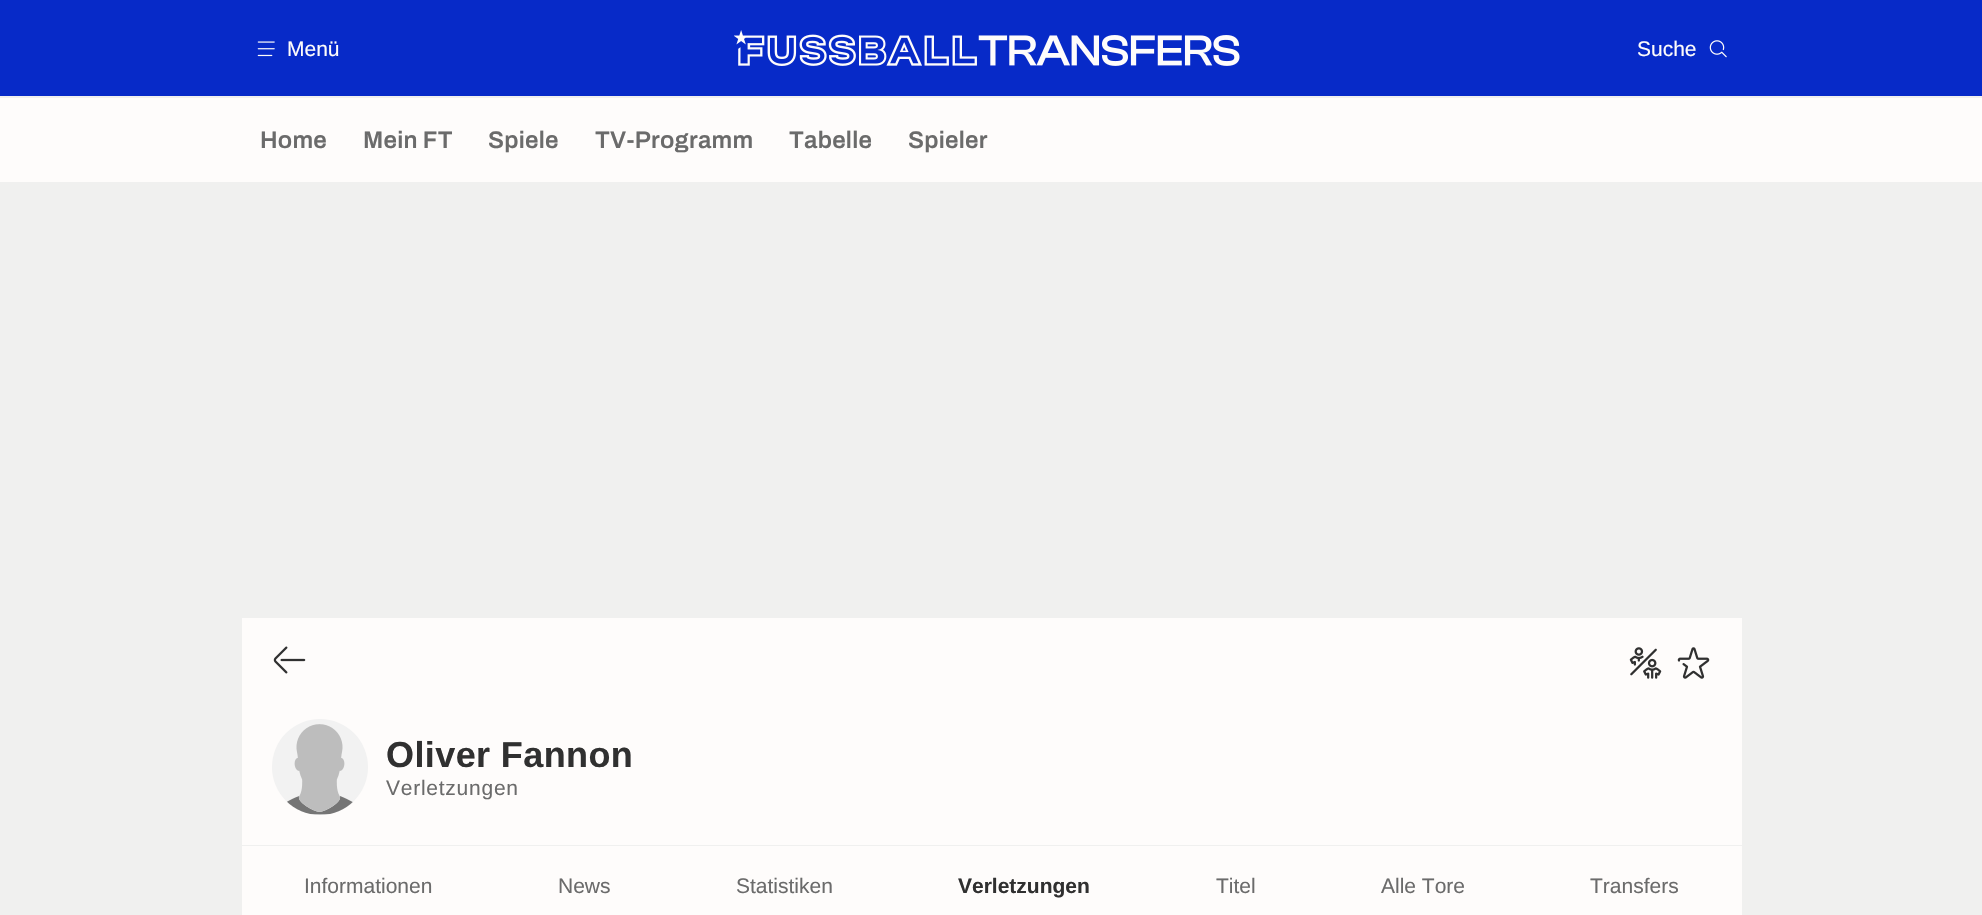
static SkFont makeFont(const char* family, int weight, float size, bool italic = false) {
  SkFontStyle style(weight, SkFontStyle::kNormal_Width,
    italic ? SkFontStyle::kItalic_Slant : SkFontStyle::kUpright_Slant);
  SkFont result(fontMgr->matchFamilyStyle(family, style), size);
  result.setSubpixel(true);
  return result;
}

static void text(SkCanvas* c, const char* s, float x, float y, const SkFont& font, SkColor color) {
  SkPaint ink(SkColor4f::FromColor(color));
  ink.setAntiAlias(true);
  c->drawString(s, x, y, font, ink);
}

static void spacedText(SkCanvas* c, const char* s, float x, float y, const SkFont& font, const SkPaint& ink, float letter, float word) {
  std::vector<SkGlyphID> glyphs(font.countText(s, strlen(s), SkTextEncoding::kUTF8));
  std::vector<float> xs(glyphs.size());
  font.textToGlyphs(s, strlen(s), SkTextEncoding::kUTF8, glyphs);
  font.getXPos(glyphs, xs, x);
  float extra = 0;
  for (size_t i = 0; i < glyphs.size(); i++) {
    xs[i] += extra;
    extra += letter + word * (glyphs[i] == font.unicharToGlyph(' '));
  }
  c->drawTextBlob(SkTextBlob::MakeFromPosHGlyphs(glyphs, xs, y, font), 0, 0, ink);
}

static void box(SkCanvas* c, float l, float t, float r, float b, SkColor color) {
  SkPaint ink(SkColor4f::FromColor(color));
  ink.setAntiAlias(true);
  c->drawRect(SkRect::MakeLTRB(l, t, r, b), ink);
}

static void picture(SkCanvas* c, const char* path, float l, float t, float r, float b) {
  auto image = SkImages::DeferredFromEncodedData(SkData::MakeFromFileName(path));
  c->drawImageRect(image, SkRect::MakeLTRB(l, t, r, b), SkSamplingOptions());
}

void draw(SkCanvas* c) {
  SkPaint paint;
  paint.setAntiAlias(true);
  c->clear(0xfff0f0ef);
  box(c, 0, 0, 1982, 96, 0xff072ac8);
  picture(c, "img_01.png", 257, 41, 275, 57);
  SkFont face1 = makeFont("Liberation Sans", 400, 21);
  text(c, "Menü", 287, 56, face1, 0xfffefcfb);
  picture(c, "img_02.png", 734, 30, 1240, 66);
  text(c, "Suche", 1637, 56, face1, 0xfffefcfb);
  picture(c, "img_03.png", 1709, 40, 1727, 58);
  box(c, 0, 98, 1982, 182, 0xfffefcfb);
  SkFont face2 = makeFont("Archivo", 600, 24);
  paint.setColor(0xff6b6b6b);
  spacedText(c, "Home", 260, 148, face2, paint, 0.25f, 0);
  spacedText(c, "Mein FT", 363, 148, face2, paint, 0.25f, 0);
  spacedText(c, "Spiele", 488, 148, face2, paint, 0.25f, 0);
  spacedText(c, "TV-Programm", 595, 148, face2, paint, 0.25f, 0);
  spacedText(c, "Tabelle", 789, 148, face2, paint, 0.25f, 0);
  spacedText(c, "Spieler", 908, 148, face2, paint, 0.25f, 0);
  box(c, 242, 618, 1742, 845, 0xfffefcfb);
  picture(c, "img_04.png", 273, 646, 306, 674);
  picture(c, "img_05.png", 1629, 647, 1662, 679);
  picture(c, "img_06.png", 1677, 647, 1710, 679);
  paint.setColor(0xfff2f2f2);
  c->drawCircle(320, 767, 48, paint);
  picture(c, "img_07.png", 287, 724, 353, 815);
  SkFont face3 = makeFont("Liberation Sans", 700, 36);
  paint.setColor(0xff303030);
  spacedText(c, "Oliver Fannon", 386, 767, face3, paint, 0.4f, 0);
  paint.setColor(0xff6b6b6b);
  spacedText(c, "Verletzungen", 386, 795, face1, paint, 0.75f, 0);
  box(c, 242, 846, 1742, 915, 0xfffefcfb);
  text(c, "Informationen", 304, 893, face1, 0xff6b6b6b);
  text(c, "News", 558, 893, face1, 0xff6b6b6b);
  text(c, "Statistiken", 736, 893, face1, 0xff6b6b6b);
  SkFont face4 = makeFont("Liberation Sans", 700, 21);
  text(c, "Verletzungen", 958, 893, face4, 0xff303030);
  text(c, "Titel", 1216, 893, face1, 0xff6b6b6b);
  text(c, "Alle Tore", 1381, 893, face1, 0xff6b6b6b);
  text(c, "Transfers", 1590, 893, face1, 0xff6b6b6b);
}
